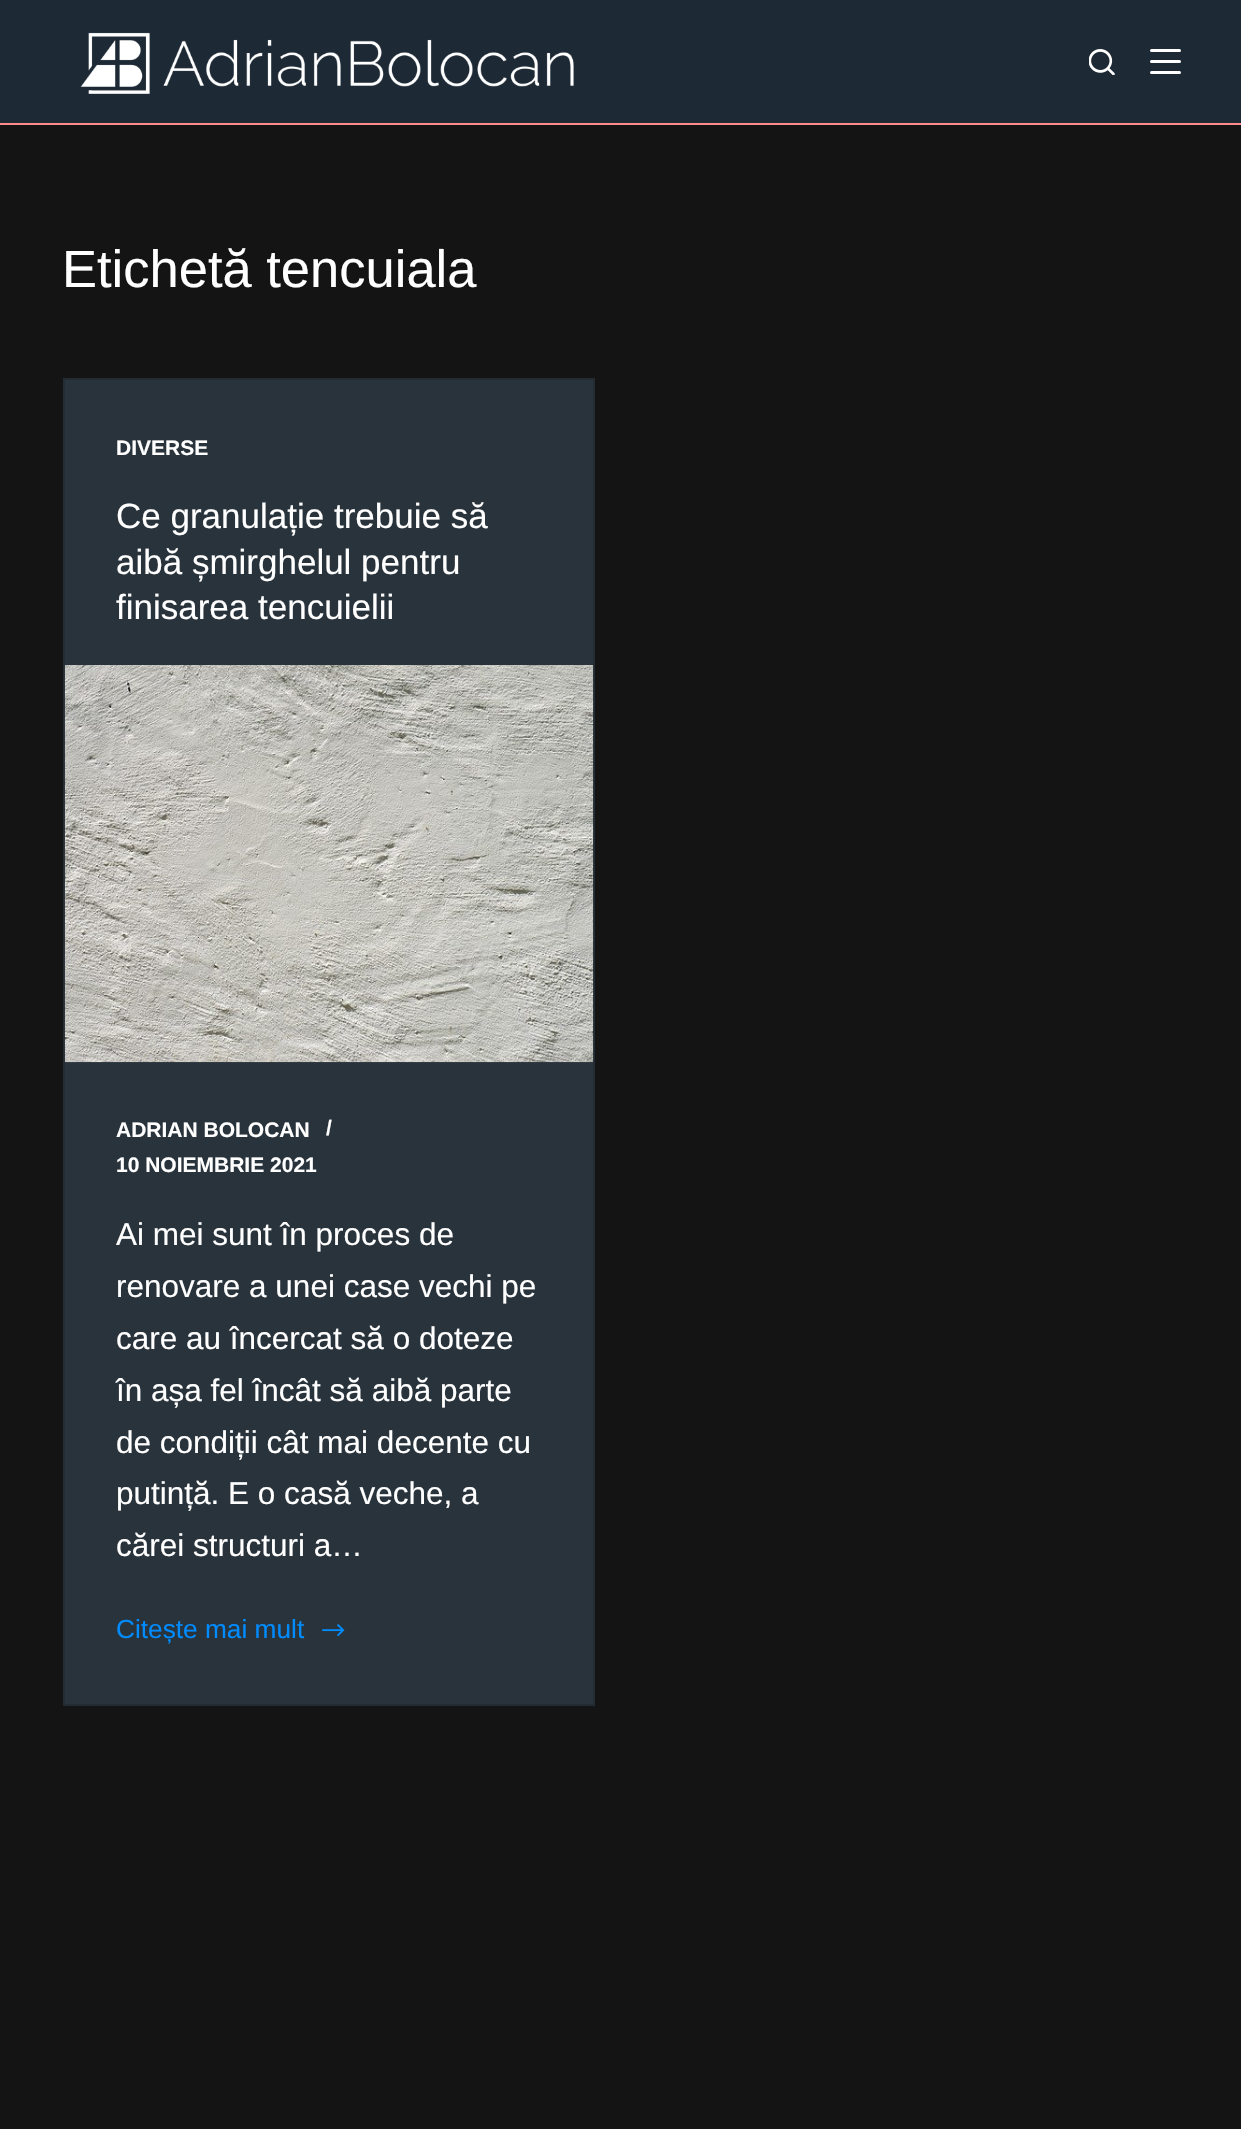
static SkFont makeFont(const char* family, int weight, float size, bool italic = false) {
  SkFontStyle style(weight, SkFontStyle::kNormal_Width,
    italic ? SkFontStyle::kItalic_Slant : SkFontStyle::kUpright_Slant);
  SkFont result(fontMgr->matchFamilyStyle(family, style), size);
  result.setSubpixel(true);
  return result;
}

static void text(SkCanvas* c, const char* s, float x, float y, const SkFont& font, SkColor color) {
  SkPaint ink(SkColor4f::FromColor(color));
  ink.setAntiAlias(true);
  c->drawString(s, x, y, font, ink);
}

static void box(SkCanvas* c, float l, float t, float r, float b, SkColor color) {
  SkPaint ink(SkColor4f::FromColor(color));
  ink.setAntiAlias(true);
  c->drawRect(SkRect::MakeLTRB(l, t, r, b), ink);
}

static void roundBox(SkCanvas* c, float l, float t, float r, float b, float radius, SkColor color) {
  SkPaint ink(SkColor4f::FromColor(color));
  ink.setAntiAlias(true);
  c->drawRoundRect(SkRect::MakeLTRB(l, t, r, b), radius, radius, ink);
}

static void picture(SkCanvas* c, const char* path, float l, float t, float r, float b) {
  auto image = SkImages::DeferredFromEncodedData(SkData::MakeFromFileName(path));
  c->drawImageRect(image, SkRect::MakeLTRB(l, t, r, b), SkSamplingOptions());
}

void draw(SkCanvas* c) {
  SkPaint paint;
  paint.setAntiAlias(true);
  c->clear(0xff141414);
  box(c, 0, 0, 1241, 123, 0xff1d2935);
  box(c, 0, 123, 1241, 125, 0xffff8b8b);
  picture(c, "img_01.png", 80, 32, 574, 94);
  picture(c, "img_02.png", 1089, 49, 1115, 75);
  roundBox(c, 1150, 49, 1181, 52, 1.5f, 0xffffffff);
  roundBox(c, 1150, 60, 1181, 63, 1.5f, 0xffffffff);
  roundBox(c, 1150, 71, 1181, 74, 1.5f, 0xffffffff);
  SkFont face1 = makeFont("Liberation Sans", 400, 52.5f);
  text(c, "Etichetă tencuiala", 62, 287, face1, 0xffffffff);
  paint.setColor(0xff29333c);
  c->drawRect(SkRect::MakeLTRB(64, 379, 594, 1705), paint);
  paint.setStyle(SkPaint::kStroke_Style);
  paint.setStrokeWidth(2);
  paint.setColor(0xff232b33);
  c->drawRect(SkRect::MakeLTRB(64, 379, 594, 1705), paint);
  SkFont face2 = makeFont("Liberation Sans", 700, 21);
  text(c, "DIVERSE", 116, 455, face2, 0xffffffff);
  SkFont face3 = makeFont("Liberation Sans", 400, 35);
  text(c, "Ce granulație trebuie să", 116, 528, face3, 0xffffffff);
  text(c, "aibă șmirghelul pentru", 116, 574, face3, 0xffffffff);
  text(c, "finisarea tencuielii", 116, 619, face3, 0xffffffff);
  picture(c, "img_03.png", 64, 665, 594, 1063);
  text(c, "ADRIAN BOLOCAN", 116, 1137, face2, 0xffffffff);
  text(c, "/", 326, 1135, face2, 0xffffffff);
  text(c, "10 NOIEMBRIE 2021", 116, 1172, face2, 0xffffffff);
  SkFont face4 = makeFont("Liberation Sans", 400, 31.5f);
  text(c, "Ai mei sunt în proces de", 116, 1245, face4, 0xffffffff);
  text(c, "renovare a unei case vechi pe", 116, 1297, face4, 0xffffffff);
  text(c, "care au încercat să o doteze", 116, 1349, face4, 0xffffffff);
  text(c, "în așa fel încât să aibă parte", 116, 1401, face4, 0xffffffff);
  text(c, "de condiții cât mai decente cu", 116, 1453, face4, 0xffffffff);
  text(c, "putință. E o casă veche, a", 116, 1504, face4, 0xffffffff);
  text(c, "cărei structuri a…", 116, 1556, face4, 0xffffffff);
  SkFont face5 = makeFont("Liberation Sans", 400, 26.25f);
  text(c, "Citește mai mult", 116, 1638, face5, 0xff008bff);
  picture(c, "img_04.png", 322, 1624, 345, 1637);
}
